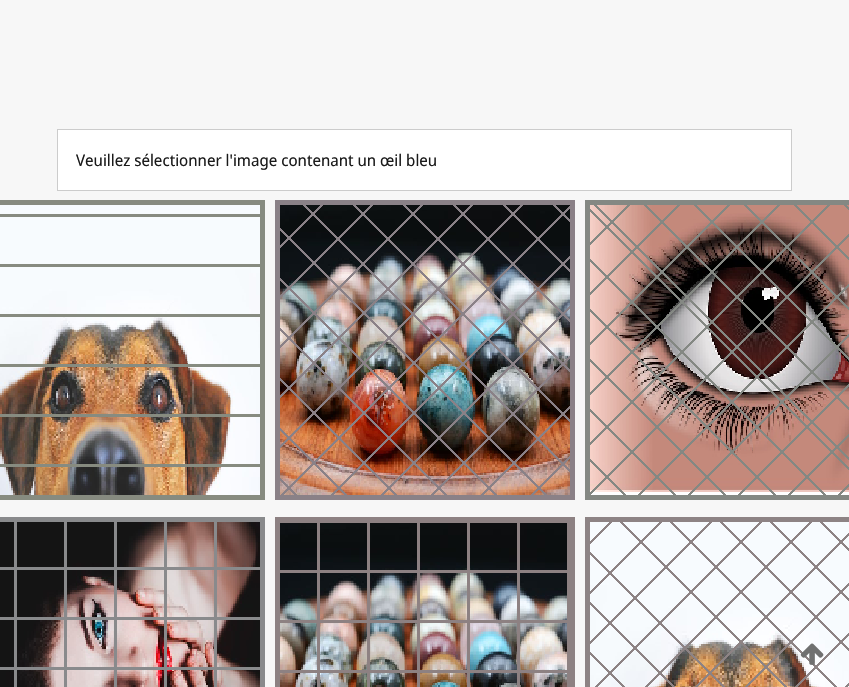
static SkFont makeFont(const char* family, int weight, float size, bool italic = false) {
  SkFontStyle style(weight, SkFontStyle::kNormal_Width,
    italic ? SkFontStyle::kItalic_Slant : SkFontStyle::kUpright_Slant);
  SkFont result(fontMgr->matchFamilyStyle(family, style), size);
  result.setSubpixel(true);
  return result;
}

static void text(SkCanvas* c, const char* s, float x, float y, const SkFont& font, SkColor color) {
  SkPaint ink(SkColor4f::FromColor(color));
  ink.setAntiAlias(true);
  c->drawString(s, x, y, font, ink);
}

static void picture(SkCanvas* c, const char* path, float l, float t, float r, float b) {
  auto image = SkImages::DeferredFromEncodedData(SkData::MakeFromFileName(path));
  c->drawImageRect(image, SkRect::MakeLTRB(l, t, r, b), SkSamplingOptions());
}

void draw(SkCanvas* c) {
  SkPaint paint;
  paint.setAntiAlias(true);
  c->clear(0xfff7f7f7);
  paint.setColor(0xffffffff);
  c->drawRect(SkRect::MakeLTRB(57.5f, 129.5f, 791.5f, 190.5f), paint);
  paint.setStyle(SkPaint::kStroke_Style);
  paint.setStrokeWidth(1);
  paint.setColor(0xffcccccc);
  c->drawRect(SkRect::MakeLTRB(57.5f, 129.5f, 791.5f, 190.5f), paint);
  SkFont face1 = makeFont("Noto Sans Display", 400, 16);
  text(c, "Veuillez sélectionner l'image contenant un œil bleu", 76, 166, face1, 0xff1a1a1a);
  picture(c, "img_01.png", 0, 200, 265, 500);
  picture(c, "img_02.png", 275, 200, 575, 500);
  picture(c, "img_03.png", 585, 200, 849, 500);
  picture(c, "img_04.png", 0, 517, 265, 687);
  picture(c, "img_05.png", 275, 517, 575, 687);
  picture(c, "img_06.png", 585, 517, 849, 687);
  picture(c, "img_07.png", 800, 643, 824, 665);
}
